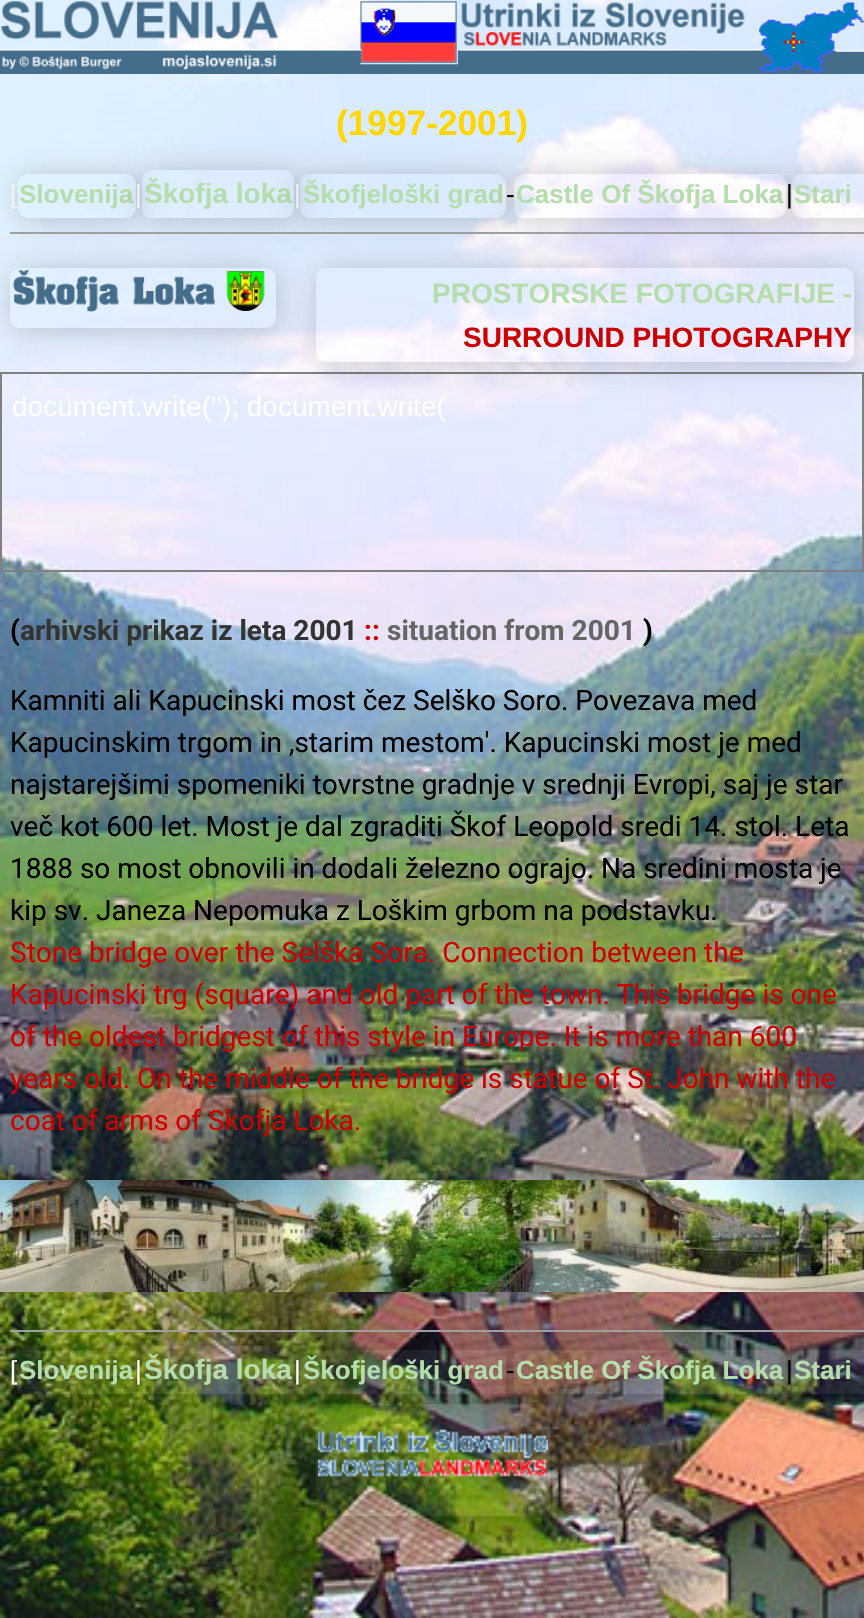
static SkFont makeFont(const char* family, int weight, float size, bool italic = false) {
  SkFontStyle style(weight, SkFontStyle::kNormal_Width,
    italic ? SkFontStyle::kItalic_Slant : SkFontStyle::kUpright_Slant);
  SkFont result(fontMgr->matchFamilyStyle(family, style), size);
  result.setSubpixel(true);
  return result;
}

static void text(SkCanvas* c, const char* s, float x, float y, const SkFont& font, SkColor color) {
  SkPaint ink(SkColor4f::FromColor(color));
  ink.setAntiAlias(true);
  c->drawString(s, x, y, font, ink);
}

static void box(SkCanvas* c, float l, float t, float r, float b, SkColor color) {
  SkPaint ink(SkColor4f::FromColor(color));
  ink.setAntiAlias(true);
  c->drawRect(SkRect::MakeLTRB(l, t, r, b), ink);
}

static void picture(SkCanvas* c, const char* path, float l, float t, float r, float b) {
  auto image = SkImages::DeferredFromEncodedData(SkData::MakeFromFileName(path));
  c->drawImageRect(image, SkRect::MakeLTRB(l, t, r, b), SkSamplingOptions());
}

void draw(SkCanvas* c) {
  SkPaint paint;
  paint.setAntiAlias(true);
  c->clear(0xffffffff);
  picture(c, "img_01.png", 0, 0, 864, 1618);
  picture(c, "img_02.png", 0, 1, 864, 74);
  SkFont face1 = makeFont("Liberation Sans", 700, 35.25f);
  text(c, "(1997-2001)", 336, 135, face1, 0xffffd700);
  SkFont face2 = makeFont("Liberation Sans", 400, 26);
  text(c, "[", 10, 203, face2, 0xffffffff);
  c->save();
  c->clipPath(SkPathBuilder(SkPathFillType::kEvenOdd).moveTo(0, 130).lineTo(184, 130).lineTo(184, 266).lineTo(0, 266).close().moveTo(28, 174).lineTo(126, 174).cubicTo(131.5f, 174, 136, 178.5f, 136, 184).lineTo(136, 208).cubicTo(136, 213.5f, 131.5f, 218, 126, 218).lineTo(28, 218).cubicTo(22.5f, 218, 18, 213.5f, 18, 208).lineTo(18, 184).cubicTo(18, 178.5f, 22.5f, 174, 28, 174).close().detach(), true);
  paint.setColor(0x33000000);
  paint.setMaskFilter(SkMaskFilter::MakeBlur(kNormal_SkBlurStyle, 15));
  c->drawRoundRect(SkRect::MakeLTRB(20, 176, 138, 220), 10, 10, paint);
  paint.setMaskFilter(nullptr);
  c->restore();
  SkFont face3 = makeFont("Liberation Sans", 700, 26);
  text(c, "Slovenija", 19, 203, face3, 0xffb6ddae);
  text(c, "|", 135, 203, face2, 0xffffffff);
  c->save();
  c->clipPath(SkPathBuilder(SkPathFillType::kEvenOdd).moveTo(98, 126).lineTo(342, 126).lineTo(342, 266).lineTo(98, 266).close().moveTo(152, 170).lineTo(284, 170).cubicTo(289.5f, 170, 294, 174.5f, 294, 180).lineTo(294, 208).cubicTo(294, 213.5f, 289.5f, 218, 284, 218).lineTo(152, 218).cubicTo(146.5f, 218, 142, 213.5f, 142, 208).lineTo(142, 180).cubicTo(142, 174.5f, 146.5f, 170, 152, 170).close().detach(), true);
  paint.setMaskFilter(SkMaskFilter::MakeBlur(kNormal_SkBlurStyle, 15));
  c->drawRoundRect(SkRect::MakeLTRB(144, 172, 296, 220), 10, 10, paint);
  paint.setMaskFilter(nullptr);
  c->restore();
  box(c, 142, 175, 294, 218, 0x0dffffff);
  SkFont face4 = makeFont("Liberation Sans", 700, 28);
  text(c, "Škofja loka", 144, 203, face4, 0xffb6ddae);
  text(c, "|", 294, 203, face2, 0xffffffff);
  c->save();
  c->clipPath(SkPathBuilder(SkPathFillType::kEvenOdd).moveTo(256, 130).lineTo(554, 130).lineTo(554, 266).lineTo(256, 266).close().moveTo(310, 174).lineTo(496, 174).cubicTo(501.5f, 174, 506, 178.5f, 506, 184).lineTo(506, 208).cubicTo(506, 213.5f, 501.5f, 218, 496, 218).lineTo(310, 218).cubicTo(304.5f, 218, 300, 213.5f, 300, 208).lineTo(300, 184).cubicTo(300, 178.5f, 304.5f, 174, 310, 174).close().detach(), true);
  paint.setMaskFilter(SkMaskFilter::MakeBlur(kNormal_SkBlurStyle, 15));
  c->drawRoundRect(SkRect::MakeLTRB(302, 176, 508, 220), 10, 10, paint);
  paint.setMaskFilter(nullptr);
  c->restore();
  box(c, 300, 174, 306, 218, 0x0dffffff);
  text(c, "Škofjeloški grad", 303, 203, face3, 0xffb6ddae);
  text(c, "-", 506, 203, face2, 0xff000000);
  c->save();
  c->clipPath(SkPathBuilder(SkPathFillType::kEvenOdd).moveTo(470, 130).lineTo(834, 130).lineTo(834, 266).lineTo(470, 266).close().moveTo(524, 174).lineTo(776, 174).cubicTo(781.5f, 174, 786, 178.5f, 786, 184).lineTo(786, 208).cubicTo(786, 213.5f, 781.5f, 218, 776, 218).lineTo(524, 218).cubicTo(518.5f, 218, 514, 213.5f, 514, 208).lineTo(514, 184).cubicTo(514, 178.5f, 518.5f, 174, 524, 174).close().detach(), true);
  paint.setMaskFilter(SkMaskFilter::MakeBlur(kNormal_SkBlurStyle, 15));
  c->drawRoundRect(SkRect::MakeLTRB(516, 176, 788, 220), 10, 10, paint);
  paint.setMaskFilter(nullptr);
  c->restore();
  text(c, "Castle Of Škofja Loka", 516, 203, face3, 0xffb6ddae);
  text(c, "|", 786, 203, face2, 0xff000000);
  c->save();
  c->clipPath(SkPathBuilder(SkPathFillType::kEvenOdd).moveTo(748, 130).lineTo(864, 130).lineTo(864, 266).lineTo(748, 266).close().moveTo(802, 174).lineTo(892, 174).cubicTo(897.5f, 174, 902, 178.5f, 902, 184).lineTo(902, 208).cubicTo(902, 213.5f, 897.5f, 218, 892, 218).lineTo(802, 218).cubicTo(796.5f, 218, 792, 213.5f, 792, 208).lineTo(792, 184).cubicTo(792, 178.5f, 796.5f, 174, 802, 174).close().detach(), true);
  paint.setMaskFilter(SkMaskFilter::MakeBlur(kNormal_SkBlurStyle, 15));
  c->drawRoundRect(SkRect::MakeLTRB(794, 176, 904, 220), 10, 10, paint);
  paint.setMaskFilter(nullptr);
  c->restore();
  box(c, 792, 174, 798, 180, 0x0dffffff);
  text(c, "Stari", 794, 203, face3, 0xffb6ddae);
  box(c, 0, 372, 864, 374, 0xff808080);
  box(c, 862, 372, 864, 572, 0xff808080);
  box(c, 0, 570, 864, 572, 0xff808080);
  box(c, 0, 372, 2, 572, 0xff808080);
  c->save();
  c->clipPath(SkPathBuilder(SkPathFillType::kEvenOdd).moveTo(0, 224).lineTo(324, 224).lineTo(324, 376).lineTo(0, 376).close().moveTo(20, 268).lineTo(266, 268).cubicTo(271.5f, 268, 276, 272.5f, 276, 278).lineTo(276, 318).cubicTo(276, 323.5f, 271.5f, 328, 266, 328).lineTo(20, 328).cubicTo(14.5f, 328, 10, 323.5f, 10, 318).lineTo(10, 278).cubicTo(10, 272.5f, 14.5f, 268, 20, 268).close().detach(), true);
  paint.setMaskFilter(SkMaskFilter::MakeBlur(kNormal_SkBlurStyle, 15));
  c->drawRoundRect(SkRect::MakeLTRB(12, 270, 278, 330), 10, 10, paint);
  paint.setMaskFilter(nullptr);
  c->restore();
  c->save();
  c->clipPath(SkPathBuilder(SkPathFillType::kEvenOdd).moveTo(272, 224).lineTo(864, 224).lineTo(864, 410).lineTo(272, 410).close().moveTo(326, 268).lineTo(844, 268).cubicTo(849.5f, 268, 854, 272.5f, 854, 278).lineTo(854, 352).cubicTo(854, 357.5f, 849.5f, 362, 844, 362).lineTo(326, 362).cubicTo(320.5f, 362, 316, 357.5f, 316, 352).lineTo(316, 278).cubicTo(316, 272.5f, 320.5f, 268, 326, 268).close().detach(), true);
  paint.setMaskFilter(SkMaskFilter::MakeBlur(kNormal_SkBlurStyle, 15));
  c->drawRoundRect(SkRect::MakeLTRB(318, 270, 856, 364), 10, 10, paint);
  paint.setMaskFilter(nullptr);
  c->restore();
  box(c, 10, 232, 864, 234, 0xff9f9f9f);
  picture(c, "img_03.png", 13, 270, 265, 312);
  text(c, "PROSTORSKE FOTOGRAFIJE -", 432, 303, face4, 0xffb6ddae);
  text(c, "SURROUND PHOTOGRAPHY", 463, 347, face4, 0xffcc0000);
  SkFont face5 = makeFont("Liberation Sans", 400, 28);
  text(c, "document.write(''); document.write(", 12, 416, face5, 0xffffffff);
  SkFont face6 = makeFont("Roboto", 700, 28);
  text(c, "(", 10, 640, face6, 0xff000000);
  text(c, "arhivski prikaz iz leta 2001", 20, 640, face6, 0xff333333);
  text(c, "::", 364, 640, face6, 0xffcc0000);
  text(c, "situation from 2001", 387, 640, face6, 0xff666666);
  text(c, ")", 643, 640, face6, 0xff000000);
  SkFont face7 = makeFont("Roboto", 400, 28);
  text(c, "Kamniti ali Kapucinski most čez Selško Soro. Povezava med", 10, 710, face7, 0xff000000);
  text(c, "Kapucinskim trgom in ,starim mestom'. Kapucinski most je med", 10, 752, face7, 0xff000000);
  text(c, "najstarejšimi spomeniki tovrstne gradnje v srednji Evropi, saj je star", 10, 794, face7, 0xff000000);
  text(c, "več kot 600 let. Most je dal zgraditi Škof Leopold sredi 14. stol. Leta", 10, 836, face7, 0xff000000);
  text(c, "1888 so most obnovili in dodali železno ograjo. Na sredini mosta je", 10, 878, face7, 0xff000000);
  text(c, "kip sv. Janeza Nepomuka z Loškim grbom na podstavku.", 10, 920, face7, 0xff000000);
  text(c, "Stone bridge over the Selška Sora. Connection between the", 10, 962, face7, 0xffcc0000);
  text(c, "Kapucinski trg (square) and old part of the town. This bridge is one", 10, 1004, face7, 0xffcc0000);
  text(c, "of the oldest bridgest of this style in Europe. It is more than 600", 10, 1046, face7, 0xffcc0000);
  text(c, "years old. On the middle of the bridge is statue of St. John with the", 10, 1088, face7, 0xffcc0000);
  text(c, "coat of arms of Skofja Loka.", 10, 1130, face7, 0xffcc0000);
  picture(c, "img_04.png", 0, 1180, 864, 1292);
  c->save();
  c->clipPath(SkPathBuilder(SkPathFillType::kEvenOdd).moveTo(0, 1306).lineTo(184, 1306).lineTo(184, 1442).lineTo(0, 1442).close().moveTo(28, 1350).lineTo(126, 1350).cubicTo(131.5f, 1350, 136, 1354.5f, 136, 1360).lineTo(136, 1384).cubicTo(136, 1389.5f, 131.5f, 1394, 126, 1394).lineTo(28, 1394).cubicTo(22.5f, 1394, 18, 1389.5f, 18, 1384).lineTo(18, 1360).cubicTo(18, 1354.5f, 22.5f, 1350, 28, 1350).close().detach(), true);
  paint.setMaskFilter(SkMaskFilter::MakeBlur(kNormal_SkBlurStyle, 15));
  c->drawRoundRect(SkRect::MakeLTRB(20, 1352, 138, 1396), 10, 10, paint);
  paint.setMaskFilter(nullptr);
  c->restore();
  box(c, 18, 1350, 136, 1394, 0x0dffffff);
  c->save();
  c->clipPath(SkPathBuilder(SkPathFillType::kEvenOdd).moveTo(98, 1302).lineTo(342, 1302).lineTo(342, 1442).lineTo(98, 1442).close().moveTo(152, 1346).lineTo(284, 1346).cubicTo(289.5f, 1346, 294, 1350.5f, 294, 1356).lineTo(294, 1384).cubicTo(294, 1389.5f, 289.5f, 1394, 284, 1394).lineTo(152, 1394).cubicTo(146.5f, 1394, 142, 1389.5f, 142, 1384).lineTo(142, 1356).cubicTo(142, 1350.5f, 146.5f, 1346, 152, 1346).close().detach(), true);
  paint.setMaskFilter(SkMaskFilter::MakeBlur(kNormal_SkBlurStyle, 15));
  c->drawRoundRect(SkRect::MakeLTRB(144, 1348, 296, 1396), 10, 10, paint);
  paint.setMaskFilter(nullptr);
  c->restore();
  box(c, 142, 1346, 294, 1394, 0x0dffffff);
  c->save();
  c->clipPath(SkPathBuilder(SkPathFillType::kEvenOdd).moveTo(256, 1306).lineTo(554, 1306).lineTo(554, 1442).lineTo(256, 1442).close().moveTo(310, 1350).lineTo(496, 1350).cubicTo(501.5f, 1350, 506, 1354.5f, 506, 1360).lineTo(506, 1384).cubicTo(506, 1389.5f, 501.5f, 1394, 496, 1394).lineTo(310, 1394).cubicTo(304.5f, 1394, 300, 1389.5f, 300, 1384).lineTo(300, 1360).cubicTo(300, 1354.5f, 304.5f, 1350, 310, 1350).close().detach(), true);
  paint.setMaskFilter(SkMaskFilter::MakeBlur(kNormal_SkBlurStyle, 15));
  c->drawRoundRect(SkRect::MakeLTRB(302, 1352, 508, 1396), 10, 10, paint);
  paint.setMaskFilter(nullptr);
  c->restore();
  box(c, 300, 1350, 506, 1394, 0x0dffffff);
  c->save();
  c->clipPath(SkPathBuilder(SkPathFillType::kEvenOdd).moveTo(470, 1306).lineTo(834, 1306).lineTo(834, 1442).lineTo(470, 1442).close().moveTo(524, 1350).lineTo(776, 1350).cubicTo(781.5f, 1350, 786, 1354.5f, 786, 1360).lineTo(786, 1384).cubicTo(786, 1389.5f, 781.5f, 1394, 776, 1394).lineTo(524, 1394).cubicTo(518.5f, 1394, 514, 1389.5f, 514, 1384).lineTo(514, 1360).cubicTo(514, 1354.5f, 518.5f, 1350, 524, 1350).close().detach(), true);
  paint.setMaskFilter(SkMaskFilter::MakeBlur(kNormal_SkBlurStyle, 15));
  c->drawRoundRect(SkRect::MakeLTRB(516, 1352, 788, 1396), 10, 10, paint);
  paint.setMaskFilter(nullptr);
  c->restore();
  box(c, 514, 1350, 786, 1394, 0x0dffffff);
  c->save();
  c->clipPath(SkPathBuilder(SkPathFillType::kEvenOdd).moveTo(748, 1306).lineTo(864, 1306).lineTo(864, 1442).lineTo(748, 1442).close().moveTo(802, 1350).lineTo(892, 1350).cubicTo(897.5f, 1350, 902, 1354.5f, 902, 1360).lineTo(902, 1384).cubicTo(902, 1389.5f, 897.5f, 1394, 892, 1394).lineTo(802, 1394).cubicTo(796.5f, 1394, 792, 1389.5f, 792, 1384).lineTo(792, 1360).cubicTo(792, 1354.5f, 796.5f, 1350, 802, 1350).close().detach(), true);
  paint.setMaskFilter(SkMaskFilter::MakeBlur(kNormal_SkBlurStyle, 15));
  c->drawRoundRect(SkRect::MakeLTRB(794, 1352, 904, 1396), 10, 10, paint);
  paint.setMaskFilter(nullptr);
  c->restore();
  box(c, 10, 1330, 864, 1332, 0xff9f9f9f);
  text(c, "[", 10, 1379, face2, 0xffffffff);
  text(c, "Slovenija", 19, 1379, face3, 0xffb6ddae);
  text(c, "|", 135, 1379, face2, 0xffffffff);
  text(c, "Škofja loka", 144, 1379, face4, 0xffb6ddae);
  text(c, "|", 294, 1379, face2, 0xffffffff);
  text(c, "Škofjeloški grad", 303, 1379, face3, 0xffb6ddae);
  text(c, "-", 506, 1379, face2, 0xff000000);
  text(c, "Castle Of Škofja Loka", 516, 1379, face3, 0xffb6ddae);
  text(c, "|", 786, 1379, face2, 0xff000000);
  box(c, 792, 1350, 864, 1394, 0x0dffffff);
  text(c, "Stari", 794, 1379, face3, 0xffb6ddae);
  c->save();
  c->clipPath(SkPathBuilder(SkPathFillType::kEvenOdd).moveTo(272, 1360).lineTo(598, 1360).lineTo(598, 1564).lineTo(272, 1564).close().moveTo(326, 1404).lineTo(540, 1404).cubicTo(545.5f, 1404, 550, 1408.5f, 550, 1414).lineTo(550, 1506).cubicTo(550, 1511.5f, 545.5f, 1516, 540, 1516).lineTo(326, 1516).cubicTo(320.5f, 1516, 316, 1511.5f, 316, 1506).lineTo(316, 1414).cubicTo(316, 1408.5f, 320.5f, 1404, 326, 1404).close().detach(), true);
  paint.setMaskFilter(SkMaskFilter::MakeBlur(kNormal_SkBlurStyle, 15));
  c->drawRoundRect(SkRect::MakeLTRB(318, 1406, 552, 1518), 10, 10, paint);
  paint.setMaskFilter(nullptr);
  c->restore();
  box(c, 316, 1404, 550, 1516, 0x0dffffff);
  picture(c, "img_05.png", 318, 1429, 548, 1477);
}
